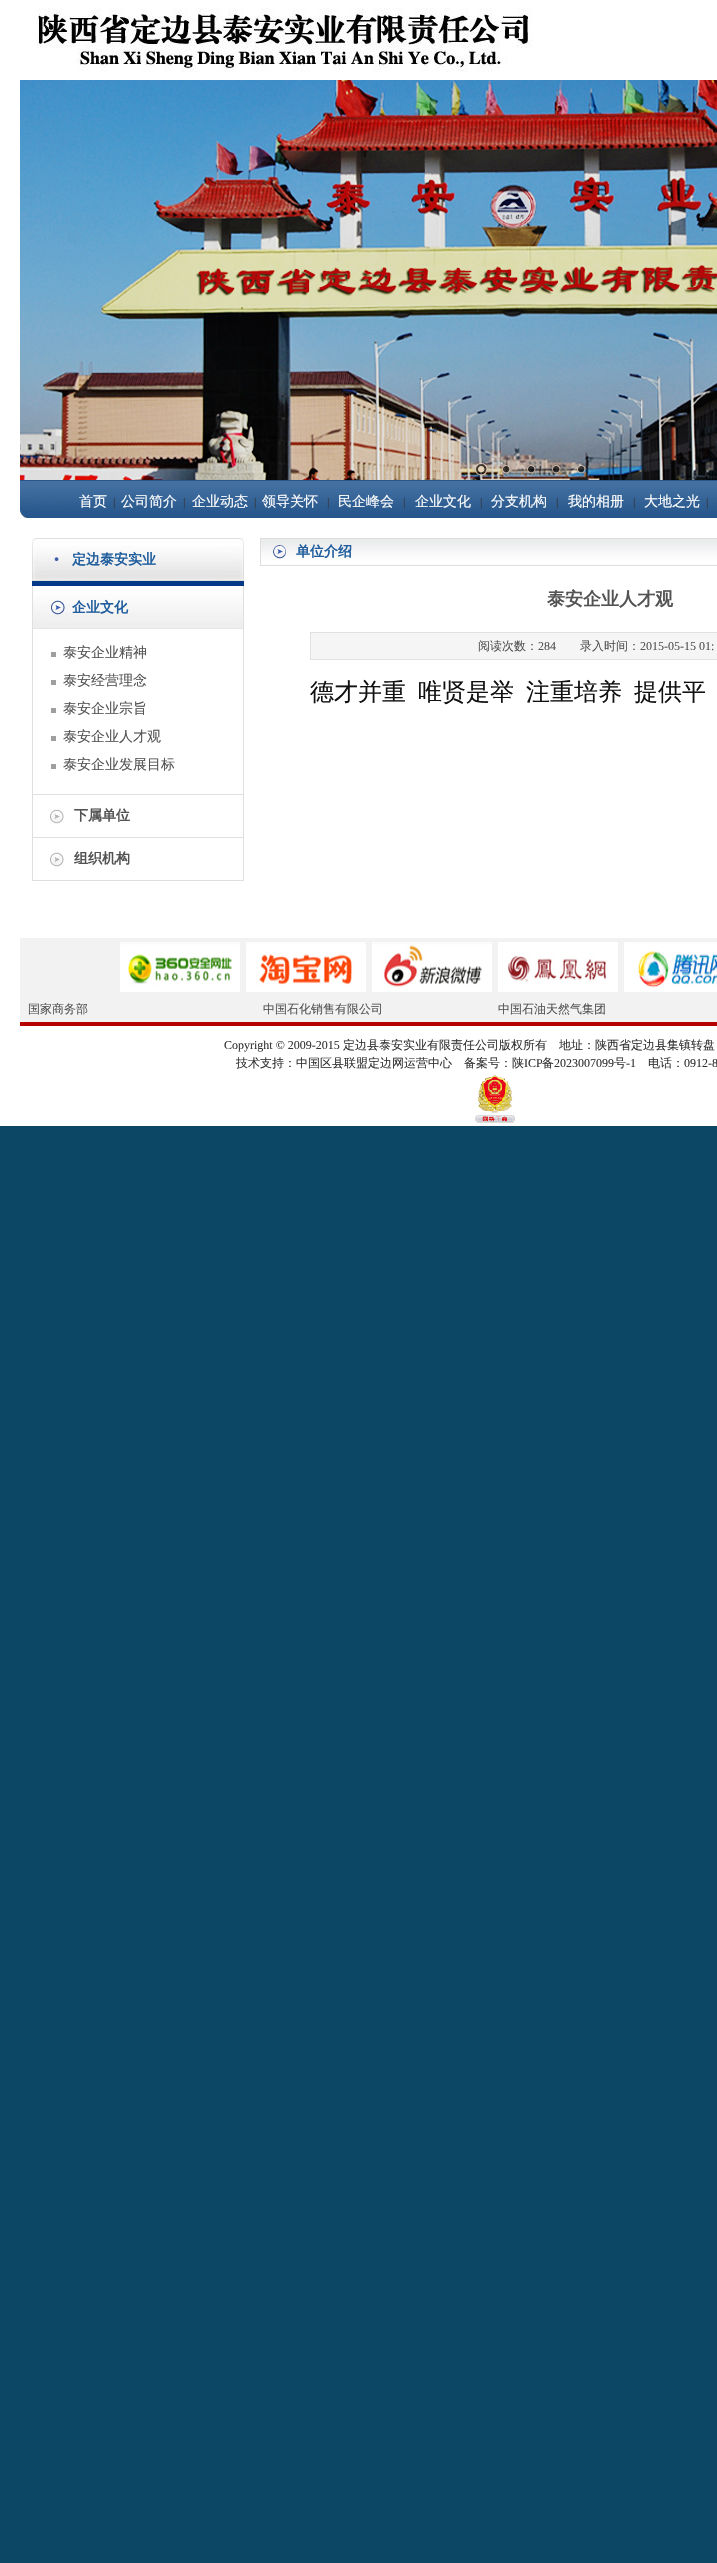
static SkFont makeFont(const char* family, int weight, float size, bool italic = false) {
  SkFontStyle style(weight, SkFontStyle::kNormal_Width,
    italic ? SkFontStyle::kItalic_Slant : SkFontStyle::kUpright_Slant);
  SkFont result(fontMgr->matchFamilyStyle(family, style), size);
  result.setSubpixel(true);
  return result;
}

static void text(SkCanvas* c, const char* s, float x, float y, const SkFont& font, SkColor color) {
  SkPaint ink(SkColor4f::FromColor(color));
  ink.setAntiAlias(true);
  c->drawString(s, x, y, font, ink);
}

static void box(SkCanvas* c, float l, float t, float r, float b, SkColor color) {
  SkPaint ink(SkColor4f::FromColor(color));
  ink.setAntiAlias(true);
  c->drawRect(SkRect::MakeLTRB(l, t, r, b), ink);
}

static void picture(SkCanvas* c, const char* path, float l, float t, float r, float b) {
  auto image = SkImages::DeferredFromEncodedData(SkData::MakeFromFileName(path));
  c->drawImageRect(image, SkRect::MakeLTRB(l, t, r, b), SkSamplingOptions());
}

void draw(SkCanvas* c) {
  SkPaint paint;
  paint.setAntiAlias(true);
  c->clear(0xff0c4765);
  box(c, 0, 0, 717, 1126, 0xffffffff);
  picture(c, "img_01.png", 37, 8, 532, 72);
  picture(c, "img_02.png", 20, 80, 717, 480);
  picture(c, "img_03.png", 472, 460, 490, 478);
  picture(c, "img_04.png", 500, 463, 512, 475);
  picture(c, "img_05.png", 525, 463, 537, 475);
  picture(c, "img_06.png", 550, 463, 562, 475);
  picture(c, "img_07.png", 575, 463, 587, 475);
  picture(c, "img_08.png", 20, 480, 41, 518);
  picture(c, "img_09.png", 41, 480, 717, 518);
  SkFont face1 = makeFont("WenQuanYi Zen Hei", 500, 14);
  text(c, "首页", 79, 506, face1, 0xffffffff);
  SkFont face2 = makeFont("Liberation Serif", 400, 12);
  text(c, "|", 113, 506, face2, 0xff333333);
  text(c, "公司简介", 121, 506, face1, 0xffffffff);
  text(c, "|", 183, 506, face2, 0xff333333);
  text(c, "企业动态", 192, 506, face1, 0xffffffff);
  text(c, "|", 254, 506, face2, 0xff333333);
  text(c, "领导关怀", 262, 506, face1, 0xffffffff);
  text(c, "|", 327, 506, face2, 0xff333333);
  text(c, "民企峰会", 338, 506, face1, 0xffffffff);
  text(c, "|", 403, 506, face2, 0xff333333);
  text(c, "企业文化", 415, 506, face1, 0xffffffff);
  text(c, "|", 480, 506, face2, 0xff333333);
  text(c, "分支机构", 491, 506, face1, 0xffffffff);
  text(c, "|", 556, 506, face2, 0xff333333);
  text(c, "我的相册", 568, 506, face1, 0xffffffff);
  text(c, "|", 633, 506, face2, 0xff333333);
  text(c, "大地之光", 644, 506, face1, 0xffffffff);
  text(c, "|", 706, 506, face2, 0xff333333);
  picture(c, "img_10.png", 32, 538, 244, 581);
  SkFont face3 = makeFont("WenQuanYi Zen Hei", 700, 14);
  text(c, "定边泰安实业", 72, 564, face3, 0xff1f5d9d);
  box(c, 32, 581, 244, 586, 0xff043989);
  picture(c, "img_11.png", 32, 586, 244, 629);
  text(c, "企业文化", 72, 612, face3, 0xff1f5d9d);
  box(c, 243, 629, 244, 794, 0xffdfdfdf);
  box(c, 32, 629, 33, 794, 0xffdfdfdf);
  box(c, 51, 652, 56, 657, 0xff9f9f9f);
  text(c, "泰安企业精神", 63, 657, face1, 0xff535353);
  box(c, 51, 680, 56, 685, 0xff9f9f9f);
  text(c, "泰安经营理念", 63, 685, face1, 0xff535353);
  box(c, 51, 708, 56, 713, 0xff9f9f9f);
  text(c, "泰安企业宗旨", 63, 713, face1, 0xff535353);
  box(c, 51, 736, 56, 741, 0xff9f9f9f);
  text(c, "泰安企业人才观", 63, 741, face1, 0xff535353);
  box(c, 51, 764, 56, 769, 0xff9f9f9f);
  text(c, "泰安企业发展目标", 63, 769, face1, 0xff535353);
  box(c, 32, 794, 244, 795, 0xffdfdfdf);
  box(c, 243, 794, 244, 837, 0xffdfdfdf);
  box(c, 32, 794, 33, 837, 0xffdfdfdf);
  picture(c, "img_12.png", 50, 809, 64, 824);
  text(c, "下属单位", 74, 820, face3, 0xff535353);
  paint.setStyle(SkPaint::kStroke_Style);
  paint.setStrokeWidth(1);
  paint.setColor(0xffdfdfdf);
  c->drawRect(SkRect::MakeLTRB(32.5f, 837.5f, 243.5f, 880.5f), paint);
  picture(c, "img_12.png", 50, 852, 64, 867);
  text(c, "组织机构", 74, 863, face3, 0xff535353);
  picture(c, "img_13.png", 261, 539, 717, 565);
  paint.setColor(0xffdedede);
  c->drawRect(SkRect::MakeLTRB(260.5f, 538.5f, 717.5f, 565.5f), paint);
  picture(c, "img_14.png", 273, 545, 286, 559);
  text(c, "单位介绍", 296, 556, face3, 0xff1f5d9d);
  SkFont face4 = makeFont("WenQuanYi Zen Hei", 700, 18);
  text(c, "泰安企业人才观", 547, 605, face4, 0xff535353);
  paint.setStyle(SkPaint::kFill_Style);
  paint.setColor(0xfff5f5f5);
  c->drawRect(SkRect::MakeLTRB(310.5f, 632.5f, 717.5f, 659.5f), paint);
  paint.setStyle(SkPaint::kStroke_Style);
  paint.setColor(0xffe1e1e1);
  c->drawRect(SkRect::MakeLTRB(310.5f, 632.5f, 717.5f, 659.5f), paint);
  SkFont face5 = makeFont("WenQuanYi Zen Hei", 500, 12);
  text(c, "阅读次数：", 478, 650, face5, 0xff535353);
  text(c, "284", 538, 650, face2, 0xff535353);
  text(c, "录入时间：", 580, 650, face5, 0xff535353);
  text(c, "2015-05-15 01:", 640, 650, face2, 0xff535353);
  SkFont face6 = makeFont("WenQuanYi Zen Hei", 500, 24);
  text(c, "德才并重", 310, 700, face6, 0xff111111);
  text(c, "唯贤是举", 418, 700, face6, 0xff111111);
  text(c, "注重培养", 526, 700, face6, 0xff111111);
  text(c, "提供平", 634, 700, face6, 0xff111111);
  box(c, 20, 938, 717, 1022, 0xfff2f2f2);
  picture(c, "img_15.png", 120, 942, 240, 992);
  picture(c, "img_16.png", 246, 942, 366, 992);
  picture(c, "img_17.png", 372, 942, 492, 992);
  picture(c, "img_18.png", 498, 942, 618, 992);
  picture(c, "img_19.png", 624, 942, 717, 992);
  text(c, "国家商务部", 28, 1013, face5, 0xff535353);
  text(c, "中国石化销售有限公司", 263, 1013, face5, 0xff535353);
  text(c, "中国石油天然气集团", 498, 1013, face5, 0xff535353);
  box(c, 20, 1022, 717, 1026, 0xffb50102);
  text(c, "Copyright © 2009-2015", 224, 1049, face2, 0xff333333);
  text(c, "定边县泰安实业有限责任公司版权所有　地址：陕西省定边县集镇转盘", 343, 1049, face5, 0xff333333);
  text(c, "技术支持：中国区县联盟定边网运营中心", 236, 1067, face5, 0xff333333);
  text(c, "备案号：陕", 464, 1067, face5, 0xff333333);
  text(c, "ICP", 524, 1067, face2, 0xff333333);
  text(c, "备", 542, 1067, face5, 0xff333333);
  text(c, "2023007099", 554, 1067, face2, 0xff333333);
  text(c, "号", 614, 1067, face5, 0xff333333);
  text(c, "-1", 626, 1067, face2, 0xff333333);
  text(c, "电话：", 648, 1067, face5, 0xff333333);
  text(c, "0912-8", 684, 1067, face2, 0xff333333);
  picture(c, "img_20.png", 475, 1074, 515, 1123);
}
